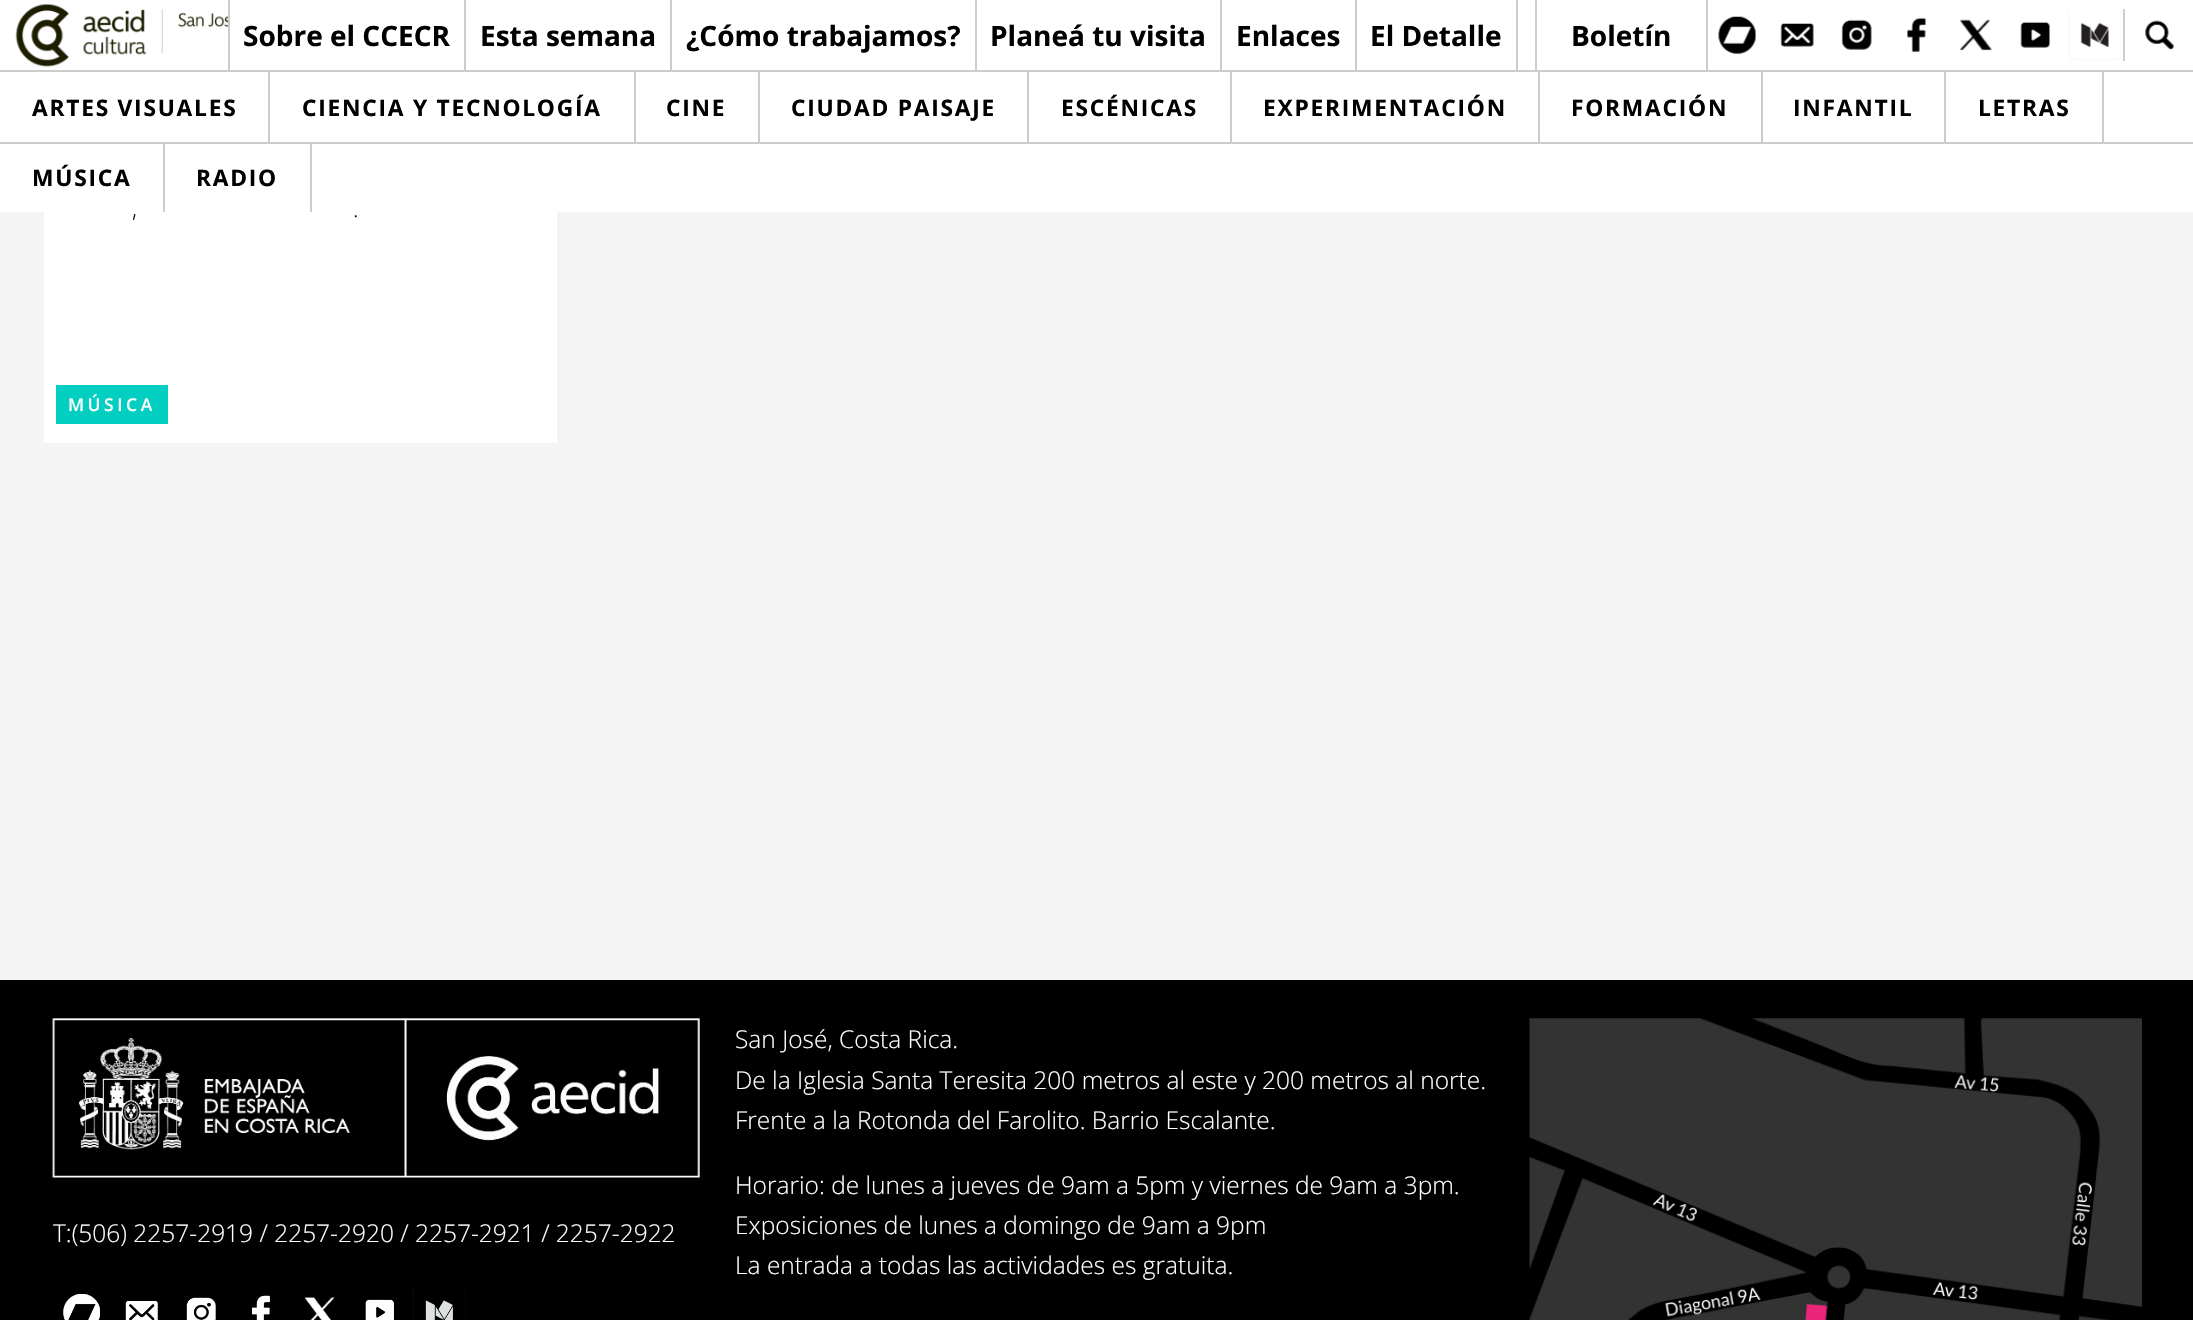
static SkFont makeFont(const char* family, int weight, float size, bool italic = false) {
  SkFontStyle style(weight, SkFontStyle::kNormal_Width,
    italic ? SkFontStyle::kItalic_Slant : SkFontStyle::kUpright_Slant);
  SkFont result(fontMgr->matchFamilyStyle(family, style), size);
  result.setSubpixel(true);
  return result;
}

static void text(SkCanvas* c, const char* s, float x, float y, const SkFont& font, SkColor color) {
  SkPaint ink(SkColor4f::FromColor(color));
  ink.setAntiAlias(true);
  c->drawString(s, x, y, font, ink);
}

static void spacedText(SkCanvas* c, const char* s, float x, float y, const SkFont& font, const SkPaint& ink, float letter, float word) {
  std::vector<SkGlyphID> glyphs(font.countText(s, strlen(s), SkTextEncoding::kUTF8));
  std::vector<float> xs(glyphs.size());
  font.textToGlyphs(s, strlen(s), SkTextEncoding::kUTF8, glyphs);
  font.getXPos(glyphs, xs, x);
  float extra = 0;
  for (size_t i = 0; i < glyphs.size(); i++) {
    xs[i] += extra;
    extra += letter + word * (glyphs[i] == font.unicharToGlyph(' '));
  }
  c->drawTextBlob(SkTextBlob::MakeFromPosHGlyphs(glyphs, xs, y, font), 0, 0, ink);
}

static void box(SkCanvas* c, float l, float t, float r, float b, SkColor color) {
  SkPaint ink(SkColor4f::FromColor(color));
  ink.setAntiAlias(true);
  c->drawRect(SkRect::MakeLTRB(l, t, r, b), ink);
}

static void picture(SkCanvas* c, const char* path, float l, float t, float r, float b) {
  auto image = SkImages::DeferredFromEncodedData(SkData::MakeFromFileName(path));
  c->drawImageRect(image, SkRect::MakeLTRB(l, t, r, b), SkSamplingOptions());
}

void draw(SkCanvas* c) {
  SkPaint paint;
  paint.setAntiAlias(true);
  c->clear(0xfff4f4f4);
  box(c, 0, 0, 2193, 212, 0xffffffff);
  box(c, 0, 70, 2193, 72, 0xffcccccc);
  box(c, 228, 0, 230, 70, 0xffcccccc);
  picture(c, "img_01.png", 15, 3, 228, 67);
  box(c, 464, 0, 466, 70, 0xffcccccc);
  SkFont face1 = makeFont("Open Sans", 700, 28);
  text(c, "Sobre el CCECR", 243, 46, face1, 0xff000000);
  box(c, 670, 0, 672, 70, 0xffcccccc);
  text(c, "Esta semana", 480, 46, face1, 0xff000000);
  box(c, 975, 0, 977, 70, 0xffcccccc);
  text(c, "¿Cómo trabajamos?", 686, 46, face1, 0xff000000);
  box(c, 1220, 0, 1222, 70, 0xffcccccc);
  text(c, "Planeá tu visita", 990, 46, face1, 0xff000000);
  box(c, 1355, 0, 1357, 70, 0xffcccccc);
  text(c, "Enlaces", 1236, 46, face1, 0xff000000);
  box(c, 1516, 0, 1518, 70, 0xffcccccc);
  text(c, "El Detalle", 1370, 46, face1, 0xff000000);
  box(c, 1706, 0, 1708, 70, 0xffcccccc);
  box(c, 1535, 0, 1537, 70, 0xffcccccc);
  text(c, "Boletín", 1571, 46, face1, 0xff000000);
  picture(c, "img_02.png", 1718, 16, 1756, 54);
  picture(c, "img_03.png", 1780, 23, 1814, 47);
  picture(c, "img_04.png", 1841, 19, 1872, 50);
  picture(c, "img_05.png", 1907, 17, 1926, 52);
  picture(c, "img_06.png", 1959, 19, 1992, 51);
  picture(c, "img_07.png", 2020, 21, 2050, 48);
  picture(c, "img_08.png", 2068, 11, 2122, 60);
  box(c, 2123, 9, 2125, 61, 0xffcccccc);
  picture(c, "img_09.png", 2145, 20, 2174, 50);
  box(c, 0, 142, 2193, 144, 0xffcccccc);
  box(c, 268, 72, 270, 142, 0xffcccccc);
  SkFont face2 = makeFont("Open Sans", 700, 22.75f);
  paint.setColor(0xff000000);
  spacedText(c, "ARTES VISUALES", 32, 116, face2, paint, 1.75f, 0);
  box(c, 634, 72, 636, 142, 0xffcccccc);
  spacedText(c, "CIENCIA Y TECNOLOGÍA", 302, 116, face2, paint, 1.75f, 0);
  box(c, 758, 72, 760, 142, 0xffcccccc);
  spacedText(c, "CINE", 666, 116, face2, paint, 1.75f, 0);
  box(c, 1027, 72, 1029, 142, 0xffcccccc);
  spacedText(c, "CIUDAD PAISAJE", 791, 116, face2, paint, 1.75f, 0);
  box(c, 1230, 72, 1232, 142, 0xffcccccc);
  spacedText(c, "ESCÉNICAS", 1061, 116, face2, paint, 1.75f, 0);
  box(c, 1538, 72, 1540, 142, 0xffcccccc);
  spacedText(c, "EXPERIMENTACIÓN", 1263, 116, face2, paint, 1.75f, 0);
  box(c, 1761, 72, 1763, 142, 0xffcccccc);
  spacedText(c, "FORMACIÓN", 1571, 116, face2, paint, 1.75f, 0);
  box(c, 1944, 72, 1946, 142, 0xffcccccc);
  spacedText(c, "INFANTIL", 1793, 116, face2, paint, 1.75f, 0);
  box(c, 2102, 72, 2104, 142, 0xffcccccc);
  spacedText(c, "LETRAS", 1978, 116, face2, paint, 1.75f, 0);
  box(c, 163, 142, 165, 212, 0xffcccccc);
  spacedText(c, "MÚSICA", 32, 186, face2, paint, 1.75f, 0);
  box(c, 310, 142, 312, 212, 0xffcccccc);
  spacedText(c, "RADIO", 196, 186, face2, paint, 1.75f, 0);
  box(c, 44, 212, 557, 443, 0xffffffff);
  SkFont face3 = makeFont("Open Sans", 300, 22.75f);
  text(c, ",", 132, 217, face3, 0xff000000);
  text(c, ".", 353, 217, face3, 0xff000000);
  box(c, 56, 385, 168, 424, 0xff02cfc1);
  SkFont face4 = makeFont("Open Sans", 600, 17.5f);
  paint.setColor(0xffffffff);
  spacedText(c, "MÚSICA", 68, 411, face4, paint, 3.5f, 0);
  box(c, 0, 980, 2193, 1320, 0xff000000);
  picture(c, "img_10.png", 52, 1018, 700, 1178);
  SkFont face5 = makeFont("Open Sans", 300, 24.5f);
  text(c, "T:(506) 2257-2919 / 2257-2920 / 2257-2921 / 2257-2922", 53, 1242, face5, 0xffffffff);
  picture(c, "img_11.png", 63, 1294, 100, 1320);
  picture(c, "img_12.png", 125, 1300, 158, 1320);
  picture(c, "img_13.png", 186, 1297, 216, 1320);
  picture(c, "img_14.png", 252, 1295, 270, 1320);
  picture(c, "img_15.png", 304, 1297, 335, 1320);
  picture(c, "img_16.png", 365, 1299, 394, 1320);
  picture(c, "img_17.png", 413, 1287, 466, 1320);
  text(c, "San José, Costa Rica.", 735, 1048, face5, 0xffffffff);
  text(c, "De la Iglesia Santa Teresita 200 metros al este y 200 metros al norte.", 735, 1089, face5, 0xffffffff);
  text(c, "Frente a la Rotonda del Farolito. Barrio Escalante.", 735, 1129, face5, 0xffffffff);
  text(c, "Horario: de lunes a jueves de 9am a 5pm y viernes de 9am a 3pm.", 735, 1194, face5, 0xffffffff);
  text(c, "Exposiciones de lunes a domingo de 9am a 9pm", 735, 1234, face5, 0xffffffff);
  text(c, "La entrada a todas las actividades es gratuita.", 735, 1274, face5, 0xffffffff);
  picture(c, "img_18.png", 1529, 1018, 2142, 1320);
}
